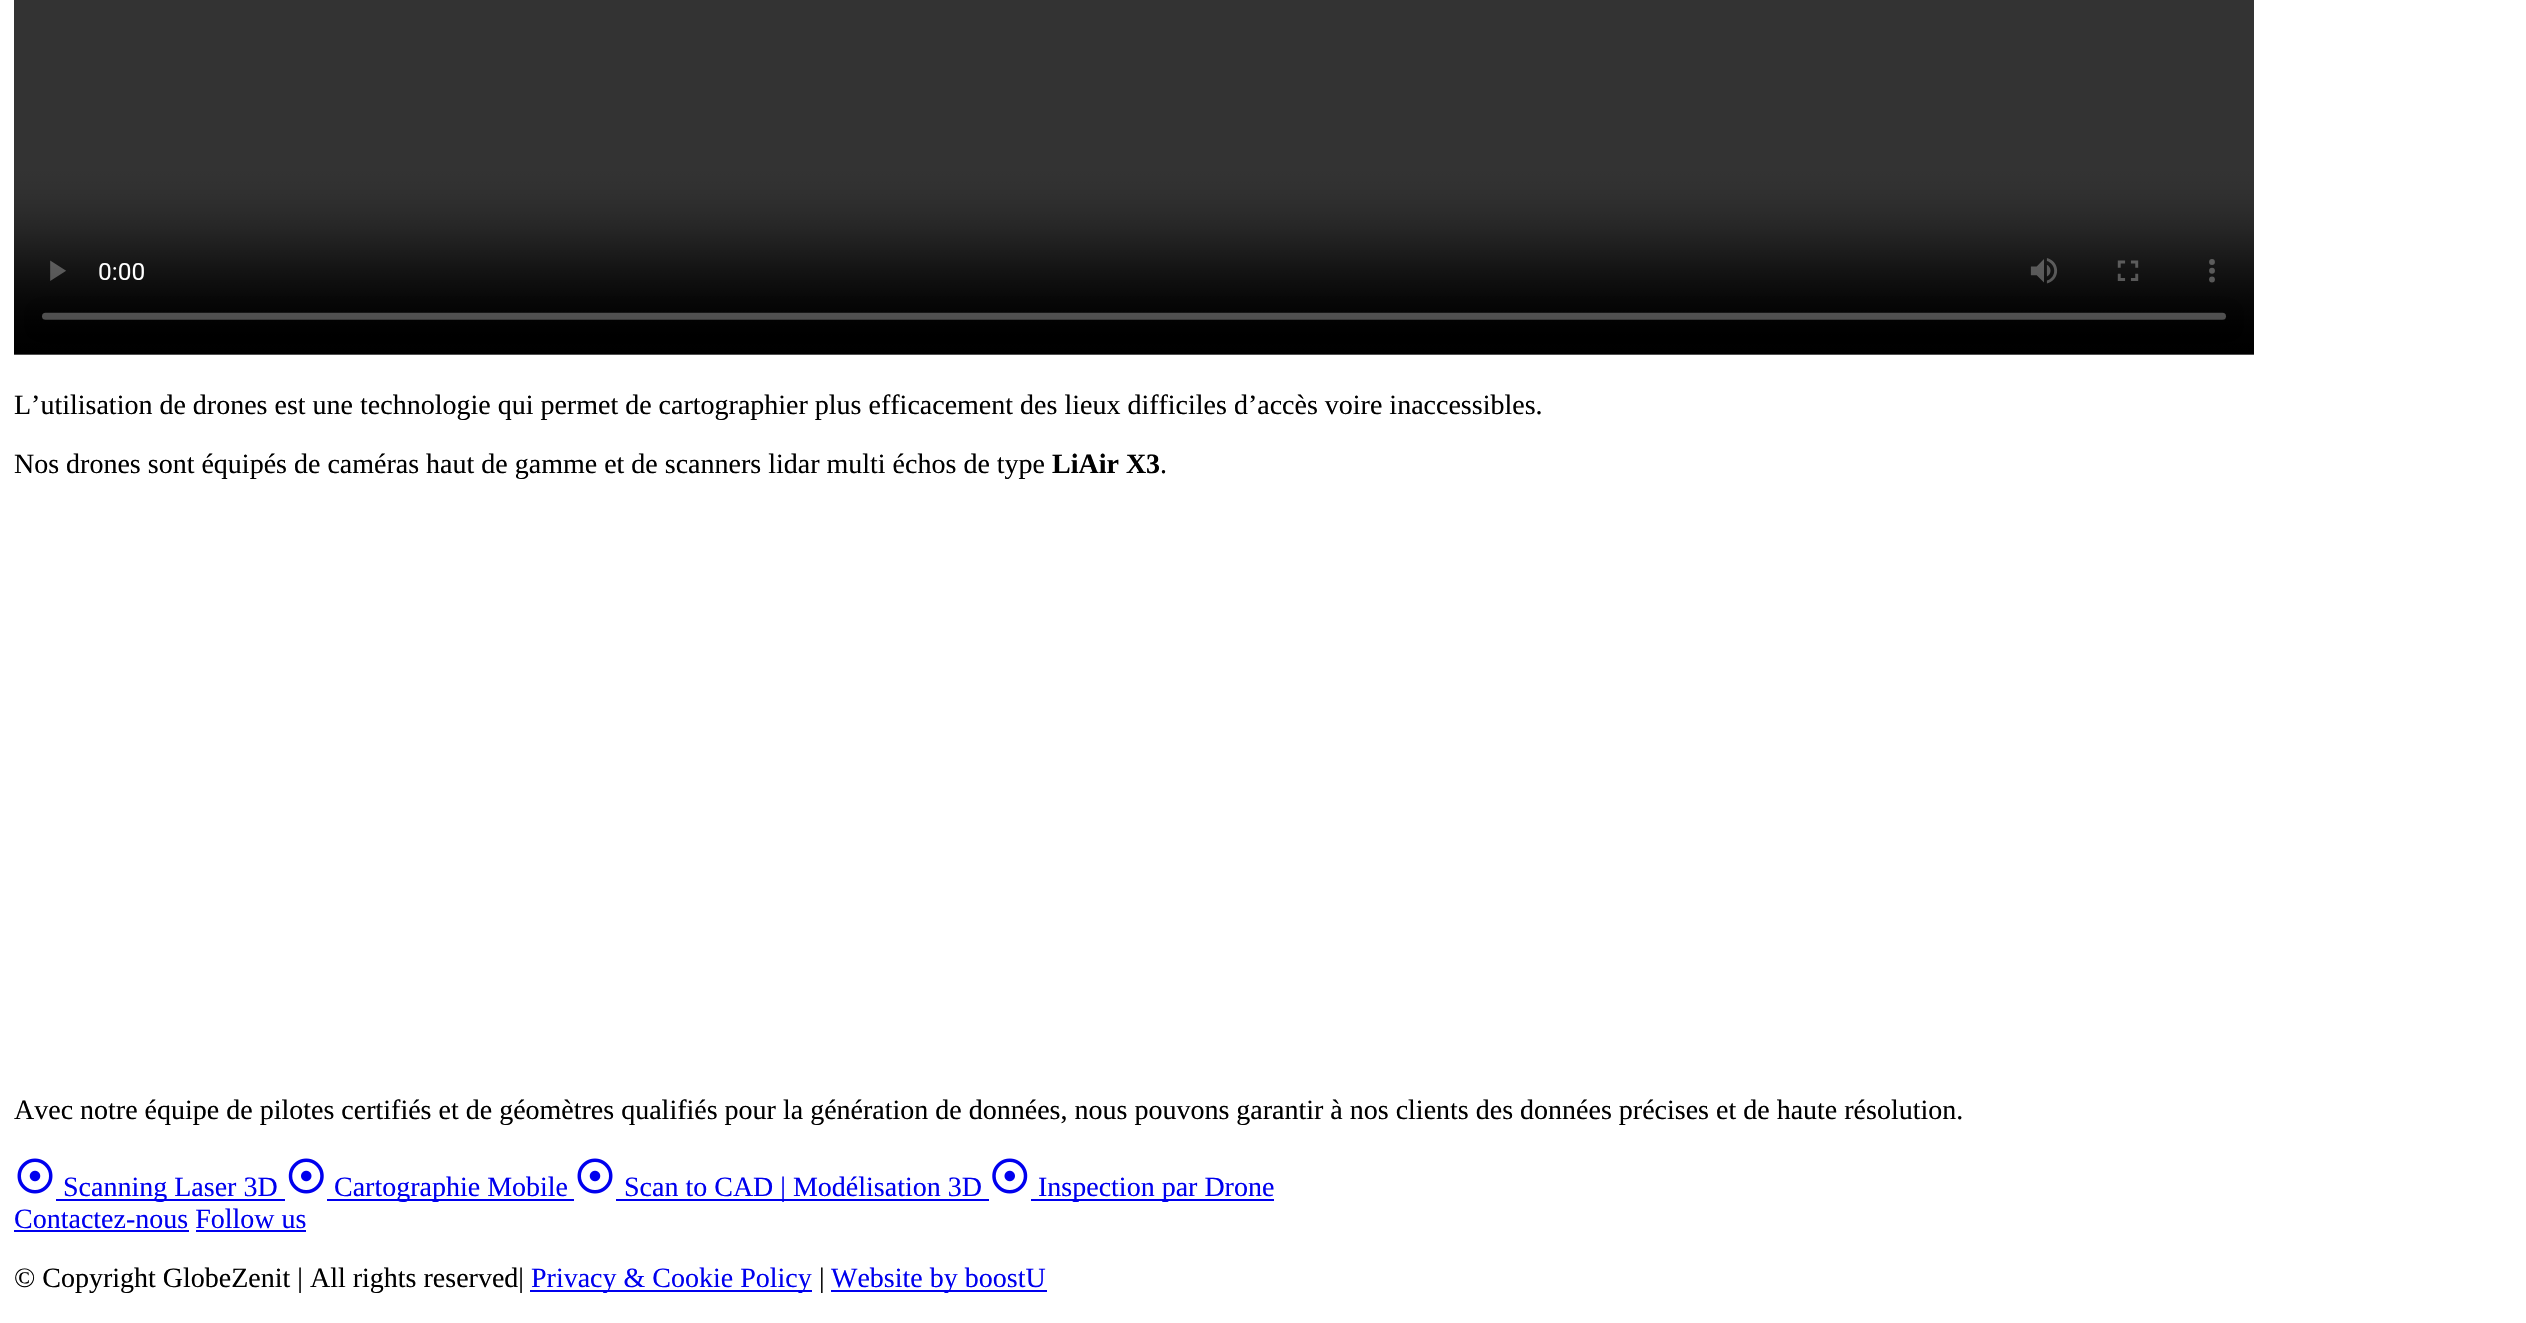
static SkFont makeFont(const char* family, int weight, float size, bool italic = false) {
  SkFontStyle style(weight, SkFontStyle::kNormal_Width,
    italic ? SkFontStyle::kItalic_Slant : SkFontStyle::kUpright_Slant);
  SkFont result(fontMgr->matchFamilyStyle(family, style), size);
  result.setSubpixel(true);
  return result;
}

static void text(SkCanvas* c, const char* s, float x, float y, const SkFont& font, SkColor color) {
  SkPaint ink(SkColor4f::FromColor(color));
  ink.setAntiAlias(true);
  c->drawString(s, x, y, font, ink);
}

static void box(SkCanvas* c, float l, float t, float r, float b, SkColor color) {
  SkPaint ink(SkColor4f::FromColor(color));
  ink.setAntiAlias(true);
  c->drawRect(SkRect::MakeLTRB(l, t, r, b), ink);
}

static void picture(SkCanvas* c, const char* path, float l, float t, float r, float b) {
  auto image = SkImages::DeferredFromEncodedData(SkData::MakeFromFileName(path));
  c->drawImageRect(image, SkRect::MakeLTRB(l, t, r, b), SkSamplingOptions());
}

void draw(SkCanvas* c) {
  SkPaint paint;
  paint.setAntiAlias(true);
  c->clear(0xffffffff);
  picture(c, "img_01.png", 14, 0, 2254, 355);
  SkFont face1 = makeFont("Liberation Serif", 400, 28);
  text(c, "L’utilisation de drones est une technologie qui permet de cartographier plus efficacement des lieux difficiles d’accès voire inaccessibles.", 14, 414, face1, 0xff000000);
  text(c, "Nos drones sont équipés de caméras haut de gamme et de scanners lidar multi échos de type", 14, 473, face1, 0xff000000);
  SkFont face2 = makeFont("Liberation Serif", 700, 28);
  text(c, "LiAir X3", 1052, 473, face2, 0xff000000);
  text(c, ".", 1160, 473, face1, 0xff000000);
  text(c, "Avec notre équipe de pilotes certifiés et de géomètres qualifiés pour la génération de données, nous pouvons garantir à nos clients des données précises et de haute résolution.", 14, 1119, face1, 0xff000000);
  picture(c, "img_02.png", 17, 1158, 53, 1194);
  box(c, 56, 1199, 285, 1201, 0xff0000ee);
  text(c, "Scanning Laser 3D", 63, 1196, face1, 0xff0000ee);
  picture(c, "img_03.png", 288, 1158, 324, 1194);
  box(c, 327, 1199, 574, 1201, 0xff0000ee);
  text(c, "Cartographie Mobile", 334, 1196, face1, 0xff0000ee);
  picture(c, "img_02.png", 577, 1158, 613, 1194);
  box(c, 616, 1199, 989, 1201, 0xff0000ee);
  text(c, "Scan to CAD | Modélisation 3D", 624, 1196, face1, 0xff0000ee);
  picture(c, "img_04.png", 992, 1158, 1028, 1194);
  box(c, 1031, 1199, 1274, 1201, 0xff0000ee);
  text(c, "Inspection par Drone", 1038, 1196, face1, 0xff0000ee);
  text(c, "Contactez-nous Follow us", 14, 1228, face1, 0xff0000ee);
  box(c, 14, 1230, 189, 1232, 0xff0000ee);
  box(c, 196, 1230, 306, 1232, 0xff0000ee);
  text(c, "© Copyright GlobeZenit | All rights reserved|", 14, 1287, face1, 0xff000000);
  box(c, 530, 1290, 812, 1292, 0xff0000ee);
  text(c, "Privacy & Cookie Policy", 531, 1287, face1, 0xff0000ee);
  text(c, "|", 819, 1287, face1, 0xff000000);
  box(c, 831, 1290, 1047, 1292, 0xff0000ee);
  text(c, "Website by boostU", 831, 1287, face1, 0xff0000ee);
}
